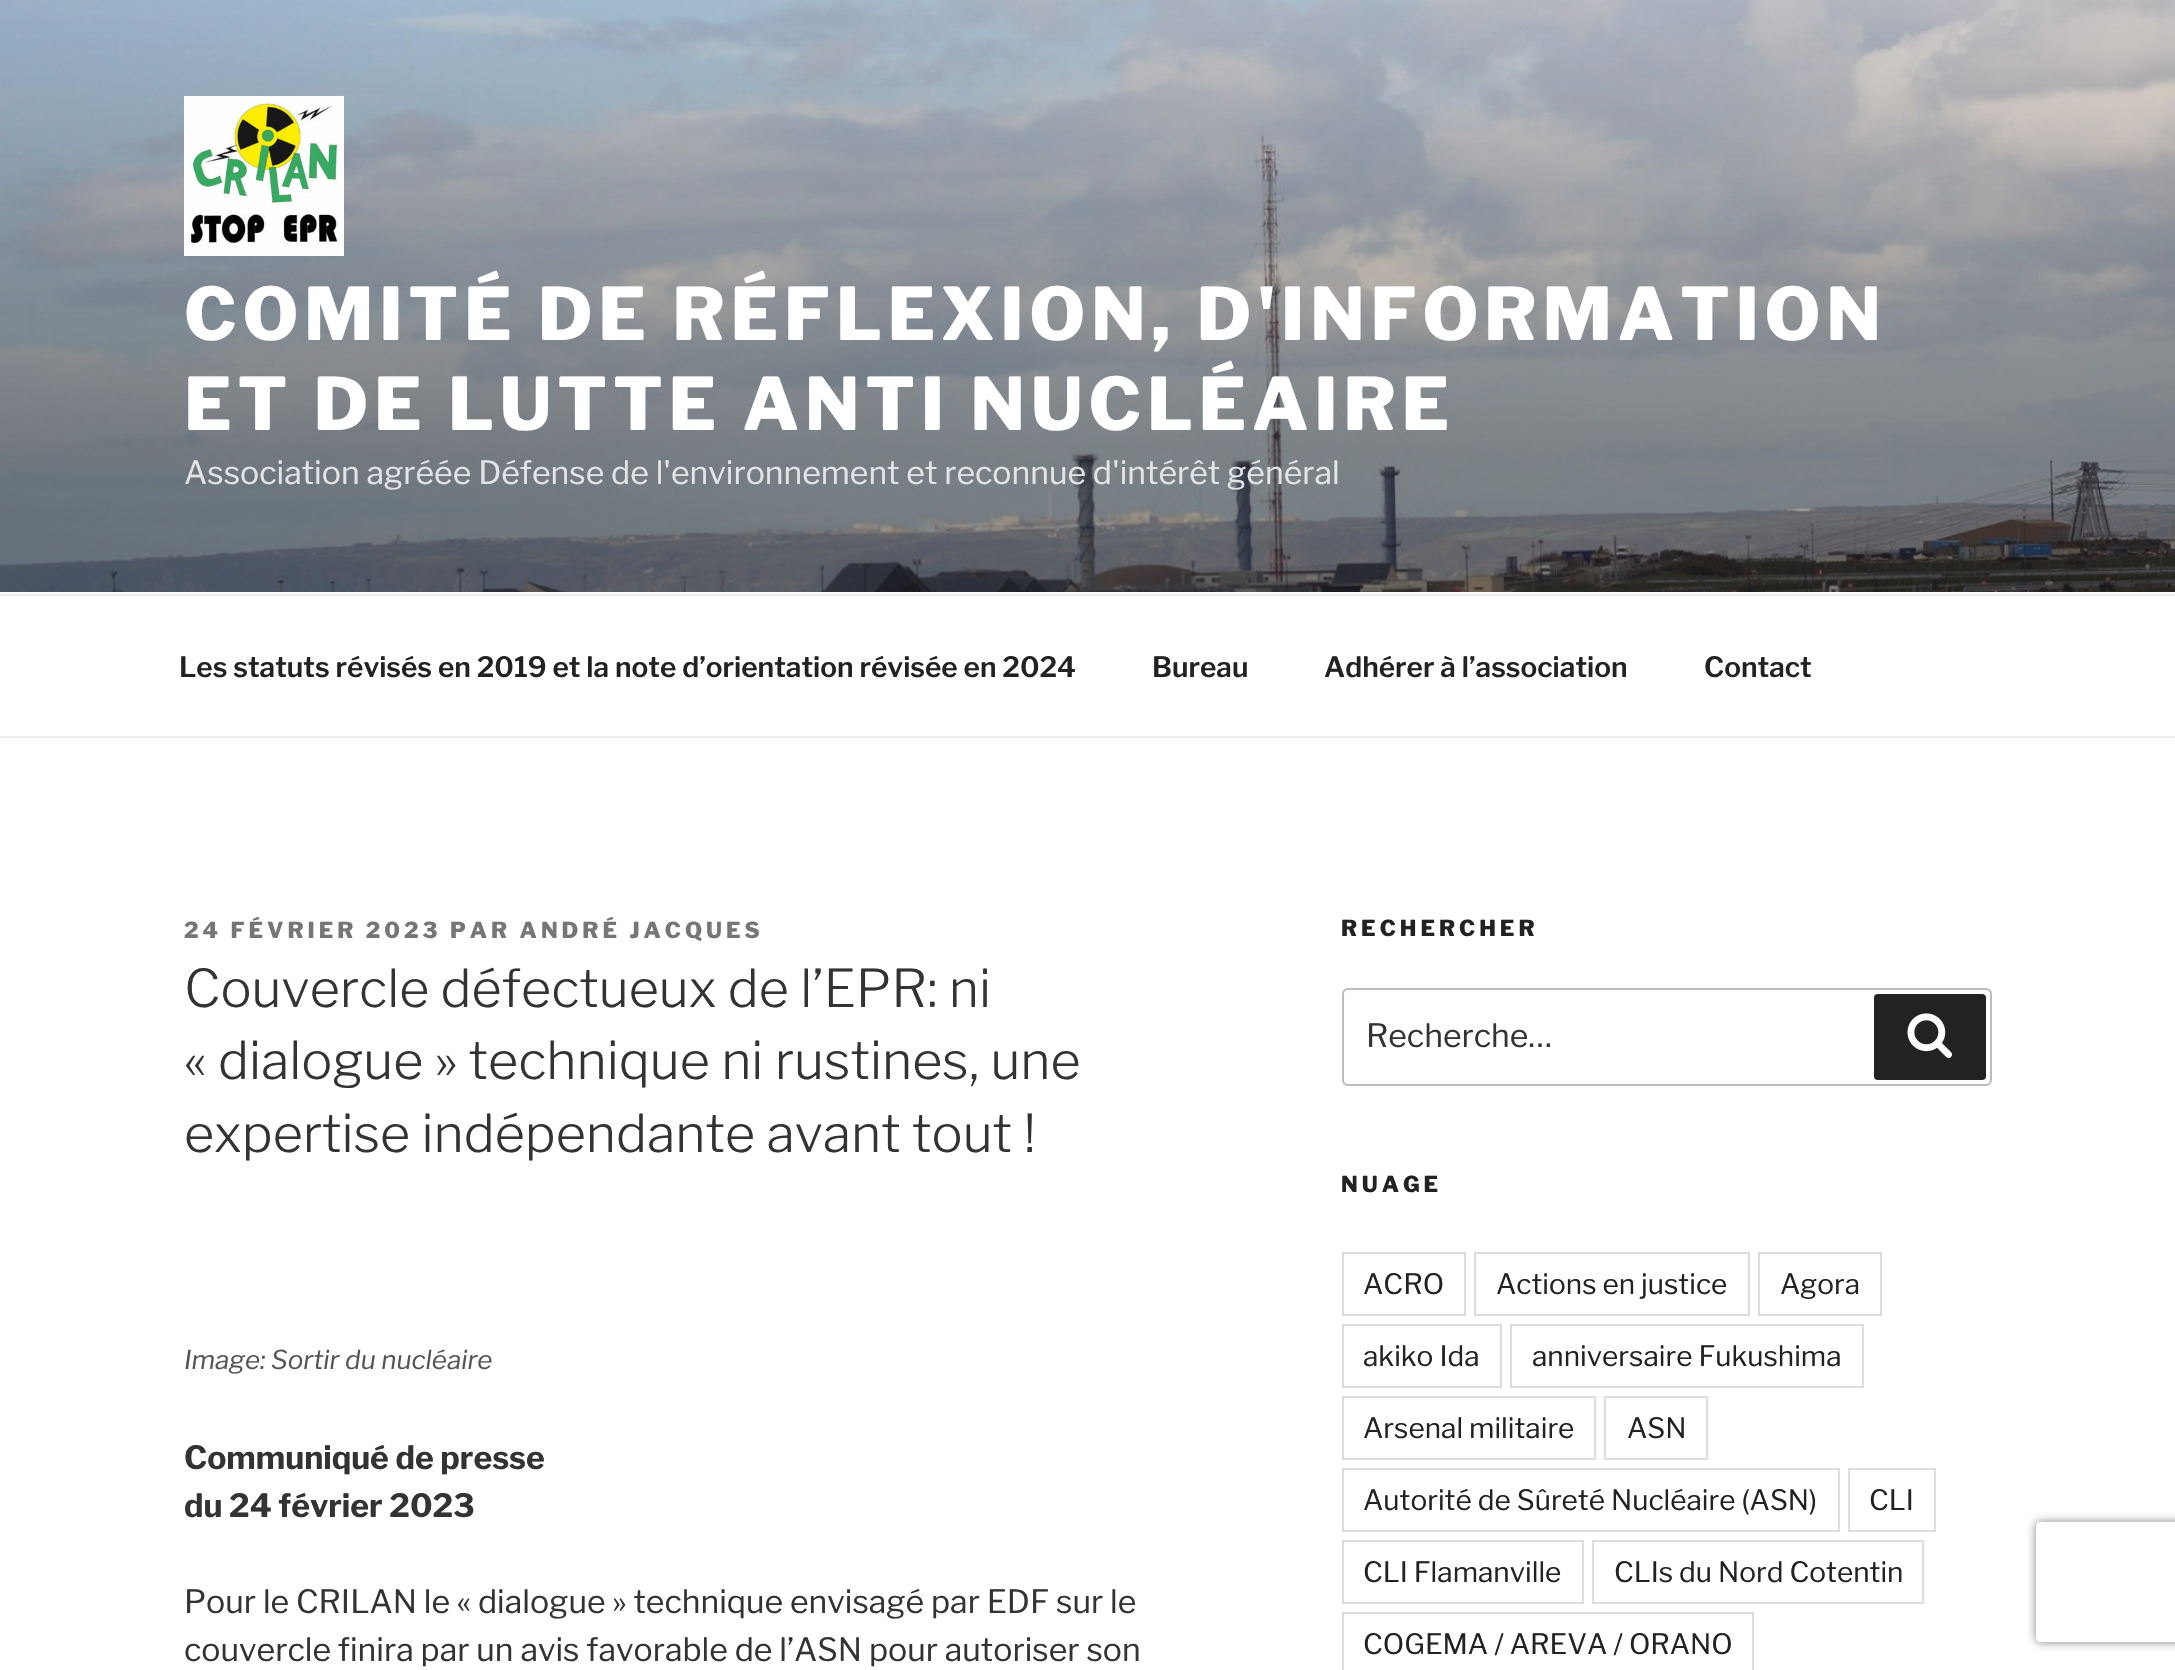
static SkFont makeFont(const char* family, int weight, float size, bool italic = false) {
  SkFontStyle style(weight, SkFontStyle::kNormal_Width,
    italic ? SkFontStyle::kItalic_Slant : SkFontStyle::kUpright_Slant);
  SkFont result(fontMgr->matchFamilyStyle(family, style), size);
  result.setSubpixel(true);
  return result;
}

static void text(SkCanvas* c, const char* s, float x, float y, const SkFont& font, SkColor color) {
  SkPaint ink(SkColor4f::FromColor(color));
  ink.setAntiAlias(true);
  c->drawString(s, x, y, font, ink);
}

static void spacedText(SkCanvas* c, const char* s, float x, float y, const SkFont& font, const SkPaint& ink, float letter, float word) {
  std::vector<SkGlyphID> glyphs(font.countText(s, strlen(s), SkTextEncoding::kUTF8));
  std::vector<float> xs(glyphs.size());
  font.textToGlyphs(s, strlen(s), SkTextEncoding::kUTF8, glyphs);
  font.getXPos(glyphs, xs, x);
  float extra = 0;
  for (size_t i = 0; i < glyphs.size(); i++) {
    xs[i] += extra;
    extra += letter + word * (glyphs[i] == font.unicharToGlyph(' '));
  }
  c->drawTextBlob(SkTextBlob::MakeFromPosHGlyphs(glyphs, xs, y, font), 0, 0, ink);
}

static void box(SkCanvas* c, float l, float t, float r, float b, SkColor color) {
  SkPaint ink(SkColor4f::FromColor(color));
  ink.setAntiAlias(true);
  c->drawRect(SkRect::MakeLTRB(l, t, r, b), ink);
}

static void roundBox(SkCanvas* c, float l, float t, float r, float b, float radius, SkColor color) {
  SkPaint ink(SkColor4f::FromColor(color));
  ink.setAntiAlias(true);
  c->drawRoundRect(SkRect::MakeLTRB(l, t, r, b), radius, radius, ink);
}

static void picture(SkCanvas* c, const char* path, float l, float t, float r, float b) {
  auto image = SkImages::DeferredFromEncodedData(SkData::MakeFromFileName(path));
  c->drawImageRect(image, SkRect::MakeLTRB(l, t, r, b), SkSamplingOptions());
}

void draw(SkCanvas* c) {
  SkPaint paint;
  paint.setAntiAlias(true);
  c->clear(0xffffffff);
  box(c, 0, 592, 2175, 594, 0xfffafafa);
  picture(c, "img_01.png", 0, 0, 2175, 592);
  picture(c, "img_02.png", 184, 96, 344, 256);
  SkFont face1 = makeFont("Libre Franklin", 100, 72);
  paint.setColor(0xffffffff);
  spacedText(c, "COMITÉ DE RÉFLEXION, D'INFORMATION", 184, 340, face1, paint, 5.75f, 0);
  spacedText(c, "ET DE LUTTE ANTI NUCLÉAIRE", 184, 430, face1, paint, 5.75f, 0);
  SkFont face2 = makeFont("Libre Franklin", 400, 32);
  text(c, "Association agréée Défense de l'environnement et reconnue d'intérêt général", 184, 484, face2, 0xffe3e4e6);
  box(c, 0, 594, 2175, 596, 0xffeeeeee);
  box(c, 0, 736, 2175, 738, 0xffeeeeee);
  SkFont face3 = makeFont("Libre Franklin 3", 100, 28);
  text(c, "Les statuts révisés en 2019 et la note d’orientation révisée en 2024", 179, 677, face3, 0xff222222);
  text(c, "Bureau", 1152, 677, face3, 0xff222222);
  text(c, "Adhérer à l’association", 1324, 677, face3, 0xff222222);
  text(c, "Contact", 1704, 677, face3, 0xff222222);
  SkFont face4 = makeFont("Libre Franklin", 100, 22);
  paint.setColor(0xff767676);
  spacedText(c, "24 FÉVRIER 2023 PAR ANDRÉ JACQUES", 184, 938, face4, paint, 4, 0);
  SkFont face5 = makeFont("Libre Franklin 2", 100, 52);
  text(c, "Couvercle défectueux de l’EPR: ni", 184, 1007, face5, 0xff333333);
  text(c, "« dialogue » technique ni rustines, une", 184, 1079, face5, 0xff333333);
  text(c, "expertise indépendante avant tout !", 184, 1152, face5, 0xff333333);
  SkFont face6 = makeFont("Libre Franklin", 400, 26, true);
  text(c, "Image: Sortir du nucléaire", 184, 1369, face6, 0xff555555);
  SkFont face7 = makeFont("Libre Franklin", 700, 32);
  text(c, "Communiqué de presse", 184, 1469, face7, 0xff333333);
  text(c, "du 24 février 2023", 184, 1517, face7, 0xff333333);
  text(c, "Pour le CRILAN le « dialogue » technique envisagé par EDF sur le", 184, 1613, face2, 0xff333333);
  text(c, "couvercle finira par un avis favorable de l’ASN pour autoriser son", 184, 1661, face2, 0xff333333);
  paint.setColor(0xff222222);
  spacedText(c, "RECHERCHER", 1341, 936, face4, paint, 4, 0);
  paint.setStyle(SkPaint::kStroke_Style);
  paint.setStrokeWidth(2);
  paint.setColor(0xffbbbbbb);
  c->drawRoundRect(SkRect::MakeLTRB(1343, 989, 1991, 1085), 5, 5, paint);
  text(c, "Recherche…", 1366, 1047, face2, 0xff333333);
  roundBox(c, 1874, 994, 1986, 1080, 4, 0xff222222);
  picture(c, "img_03.png", 1907, 1013, 1953, 1058);
  paint.setStyle(SkPaint::kFill_Style);
  paint.setColor(0xff222222);
  spacedText(c, "NUAGE", 1341, 1192, face4, paint, 4, 0);
  paint.setStyle(SkPaint::kStroke_Style);
  paint.setColor(0xffdddddd);
  c->drawRect(SkRect::MakeLTRB(1343, 1253, 1465, 1315), paint);
  SkFont face8 = makeFont("Libre Franklin", 400, 28);
  text(c, "ACRO", 1363, 1294, face8, 0xff222222);
  c->drawRect(SkRect::MakeLTRB(1475, 1253, 1749, 1315), paint);
  text(c, "Actions en justice", 1496, 1294, face8, 0xff222222);
  c->drawRect(SkRect::MakeLTRB(1759, 1253, 1881, 1315), paint);
  text(c, "Agora", 1780, 1294, face8, 0xff222222);
  c->drawRect(SkRect::MakeLTRB(1343, 1325, 1501, 1387), paint);
  text(c, "akiko Ida", 1363, 1366, face8, 0xff222222);
  c->drawRect(SkRect::MakeLTRB(1511, 1325, 1863, 1387), paint);
  text(c, "anniversaire Fukushima", 1532, 1366, face8, 0xff222222);
  c->drawRect(SkRect::MakeLTRB(1343, 1397, 1595, 1459), paint);
  text(c, "Arsenal militaire", 1363, 1438, face8, 0xff222222);
  c->drawRect(SkRect::MakeLTRB(1605, 1397, 1707, 1459), paint);
  text(c, "ASN", 1627, 1438, face8, 0xff222222);
  c->drawRect(SkRect::MakeLTRB(1343, 1469, 1839, 1531), paint);
  text(c, "Autorité de Sûreté Nucléaire (ASN)", 1363, 1510, face8, 0xff222222);
  c->drawRect(SkRect::MakeLTRB(1849, 1469, 1935, 1531), paint);
  text(c, "CLI", 1869, 1510, face8, 0xff222222);
  c->drawRect(SkRect::MakeLTRB(1343, 1541, 1583, 1603), paint);
  text(c, "CLI Flamanville", 1363, 1582, face8, 0xff222222);
  c->drawRect(SkRect::MakeLTRB(1593, 1541, 1923, 1603), paint);
  text(c, "CLIs du Nord Cotentin", 1614, 1582, face8, 0xff222222);
  c->drawRect(SkRect::MakeLTRB(1343, 1613, 1753, 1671), paint);
  text(c, "COGEMA / AREVA / ORANO", 1363, 1654, face8, 0xff222222);
  c->save();
  c->clipPath(SkPathBuilder(SkPathFillType::kEvenOdd).moveTo(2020, 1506).lineTo(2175, 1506).lineTo(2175, 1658).lineTo(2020, 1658).close().moveTo(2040, 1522).lineTo(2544, 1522).cubicTo(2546, 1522, 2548, 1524, 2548, 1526).lineTo(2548, 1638).cubicTo(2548, 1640, 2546, 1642, 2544, 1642).lineTo(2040, 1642).cubicTo(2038, 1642, 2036, 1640, 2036, 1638).lineTo(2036, 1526).cubicTo(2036, 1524, 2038, 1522, 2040, 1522).close().detach(), true);
  paint.setStyle(SkPaint::kFill_Style);
  paint.setColor(0xff808080);
  paint.setMaskFilter(SkMaskFilter::MakeBlur(kNormal_SkBlurStyle, 5));
  c->drawRoundRect(SkRect::MakeLTRB(2036, 1522, 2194, 1642), 4, 4, paint);
  paint.setMaskFilter(nullptr);
  c->restore();
}
